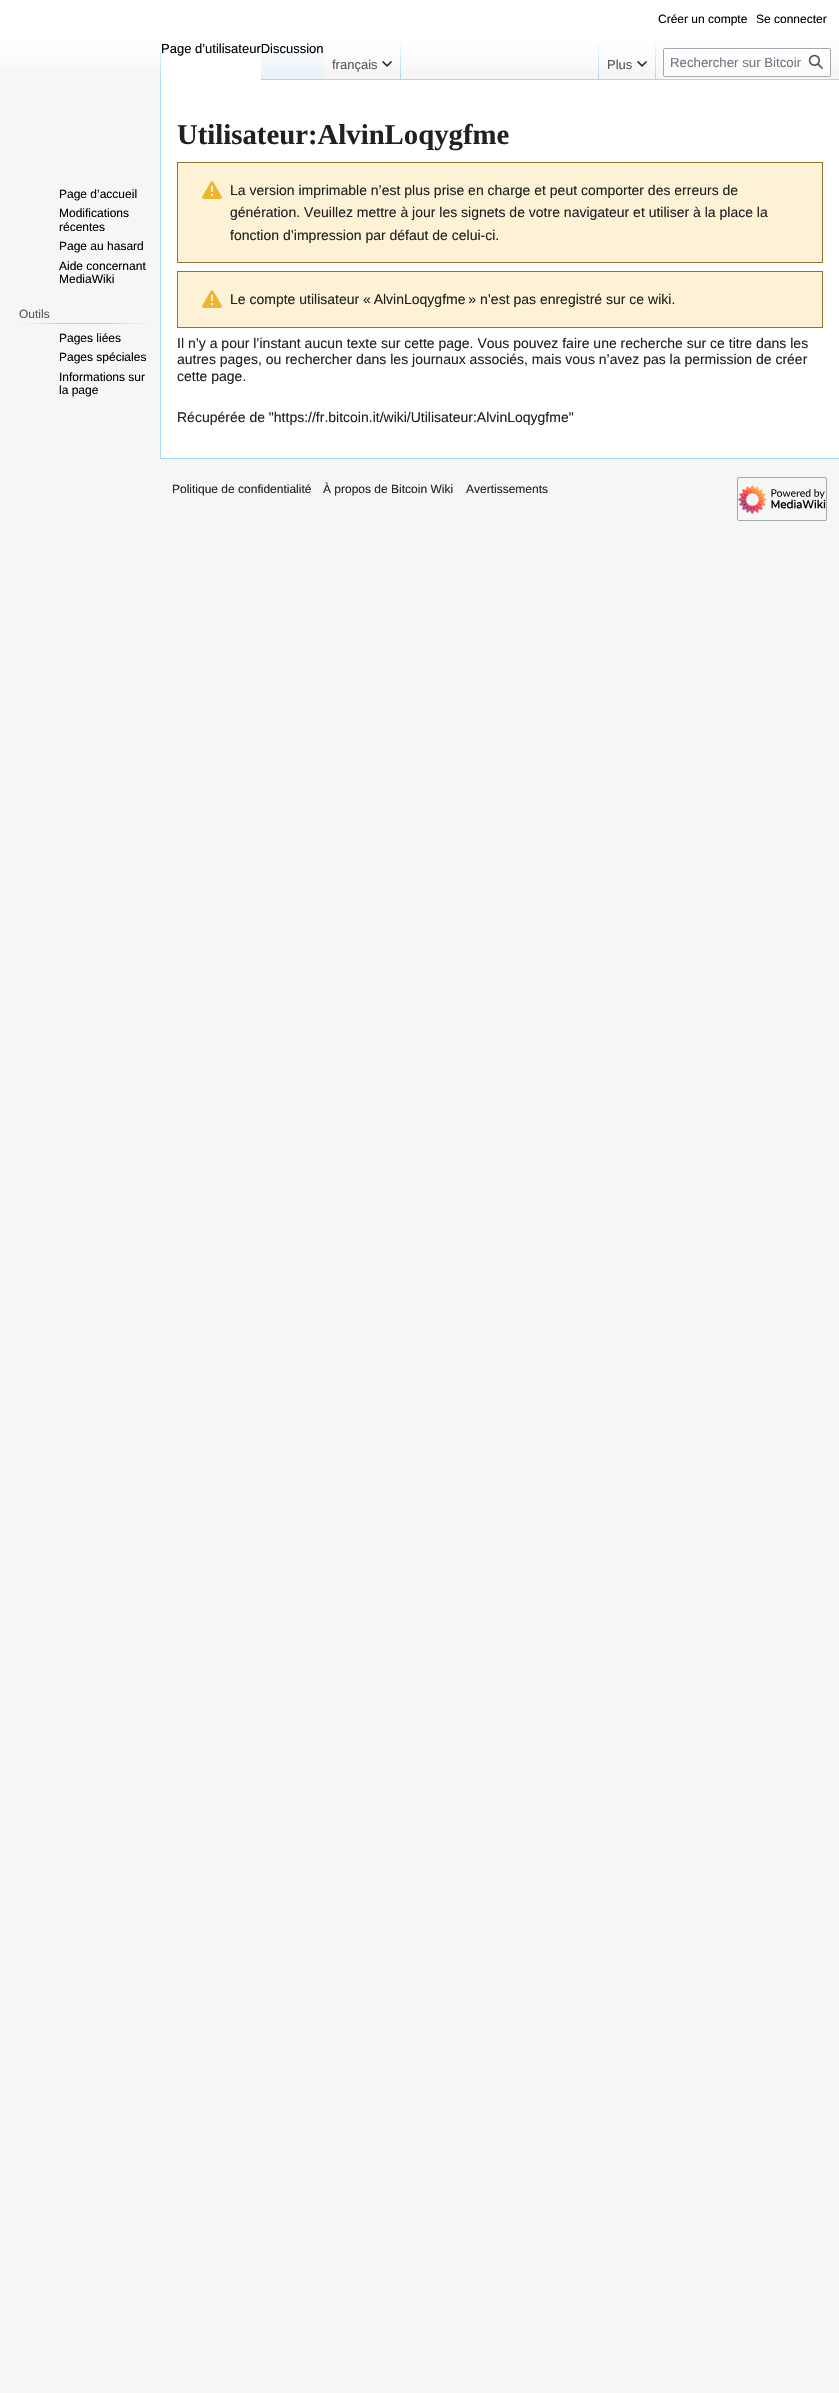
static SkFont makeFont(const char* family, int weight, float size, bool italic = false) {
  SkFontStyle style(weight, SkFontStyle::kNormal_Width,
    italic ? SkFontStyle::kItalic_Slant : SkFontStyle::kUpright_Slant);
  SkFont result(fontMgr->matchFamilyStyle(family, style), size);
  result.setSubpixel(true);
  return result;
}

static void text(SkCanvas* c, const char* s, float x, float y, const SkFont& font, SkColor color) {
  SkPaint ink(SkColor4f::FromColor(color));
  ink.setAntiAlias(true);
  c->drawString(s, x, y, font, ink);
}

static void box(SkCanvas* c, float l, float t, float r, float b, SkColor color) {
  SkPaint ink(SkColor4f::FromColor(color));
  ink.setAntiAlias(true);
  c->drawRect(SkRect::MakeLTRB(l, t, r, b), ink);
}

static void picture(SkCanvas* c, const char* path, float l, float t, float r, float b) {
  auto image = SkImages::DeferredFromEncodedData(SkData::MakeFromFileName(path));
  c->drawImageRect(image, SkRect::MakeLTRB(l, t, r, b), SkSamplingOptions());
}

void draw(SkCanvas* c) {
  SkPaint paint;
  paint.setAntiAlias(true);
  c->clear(0xfff6f6f6);
  {
    const SkColor colors[] = {0xffffffff, 0xfff6f6f6};
    const float stops[] = {0.5f, 1};
    const SkPoint ends[] = {{420, 0}, {420, 80}};
    paint.setShader(SkGradientShader::MakeLinear(ends, colors, stops, 2, SkTileMode::kClamp));
    paint.setAlpha(255);
  }
  c->drawRect(SkRect::MakeLTRB(0, 0, 839, 69), paint);
  SkFont face1 = makeFont("Liberation Sans", 400, 12);
  text(c, "Créer un compte", 658, 23, face1, 0xff000000);
  text(c, "Se connecter", 756, 23, face1, 0xff000000);
  box(c, 160, 458, 839, 459, 0xffa7d7f9);
  box(c, 160, 79, 161, 459, 0xffa7d7f9);
  {
    const SkColor colors[] = {0x00a7d7f9, 0xffa7d7f9};
    const float stops[] = {0, 1};
    const SkPoint ends[] = {{161, 40}, {161, 80}};
    paint.setShader(SkGradientShader::MakeLinear(ends, colors, stops, 2, SkTileMode::kClamp));
    paint.setAlpha(255);
  }
  c->drawRect(SkRect::MakeLTRB(160, 40, 161, 80), paint);
  box(c, 161, 51, 261, 80, 0xffffffff);
  {
    const SkColor colors[] = {0xff77c1f6, 0xffe8f2f8, 0xffffffff};
    const float stops[] = {0, 0.03f, 1};
    const SkPoint ends[] = {{293, 80}, {293, 40}};
    paint.setShader(SkGradientShader::MakeLinear(ends, colors, stops, 3, SkTileMode::kClamp));
    paint.setAlpha(255);
  }
  c->drawRect(SkRect::MakeLTRB(261, 46, 324, 80), paint);
  SkFont face2 = makeFont("Liberation Sans", 400, 13);
  text(c, "Page d’utilisateurDiscussion", 161, 53, face2, 0xff000000);
  box(c, 324, 79, 839, 80, 0xffa7d7f9);
  {
    const SkColor colors[] = {0x00a7d7f9, 0xffa7d7f9};
    const float stops[] = {0, 1};
    const SkPoint ends[] = {{401, 40}, {401, 80}};
    paint.setShader(SkGradientShader::MakeLinear(ends, colors, stops, 2, SkTileMode::kClamp));
    paint.setAlpha(255);
  }
  c->drawRect(SkRect::MakeLTRB(400, 40, 401, 80), paint);
  text(c, "français", 332, 69, face2, 0xff54595d);
  picture(c, "img_01.png", 382, 61, 392, 67);
  {
    const SkColor colors[] = {0x00a7d7f9, 0xffa7d7f9};
    const float stops[] = {0, 1};
    const SkPoint ends[] = {{599, 40}, {599, 80}};
    paint.setShader(SkGradientShader::MakeLinear(ends, colors, stops, 2, SkTileMode::kClamp));
    paint.setAlpha(255);
  }
  c->drawRect(SkRect::MakeLTRB(598, 40, 599, 80), paint);
  {
    const SkColor colors[] = {0x00a7d7f9, 0xffa7d7f9};
    const float stops[] = {0, 1};
    const SkPoint ends[] = {{656, 40}, {656, 80}};
    paint.setShader(SkGradientShader::MakeLinear(ends, colors, stops, 2, SkTileMode::kClamp));
    paint.setAlpha(255);
  }
  c->drawRect(SkRect::MakeLTRB(655, 40, 656, 80), paint);
  text(c, "Plus", 607, 69, face2, 0xff54595d);
  picture(c, "img_01.png", 637, 61, 647, 67);
  paint.setShader(nullptr);
  paint.setColor(0x80ffffff);
  c->drawRoundRect(SkRect::MakeLTRB(663.5f, 48.5f, 830.5f, 76.5f), 1.5f, 1.5f, paint);
  paint.setStyle(SkPaint::kStroke_Style);
  paint.setStrokeWidth(1);
  paint.setColor(0xffa2a9b1);
  c->drawRoundRect(SkRect::MakeLTRB(663.5f, 48.5f, 830.5f, 76.5f), 1.5f, 1.5f, paint);
  c->save();
  c->clipRect(SkRect::MakeLTRB(670, 55, 801, 70));
  SkFont face3 = makeFont("Liberation Sans", 400, 13.25f);
  text(c, "Rechercher sur Bitcoin", 670, 67, face3, 0xff72777d);
  c->restore();
  picture(c, "img_02.png", 808, 54, 823, 69);
  text(c, "Page d’accueil", 59, 198, face1, 0xff000000);
  text(c, "Modifications", 59, 217, face1, 0xff000000);
  text(c, "récentes", 59, 231, face1, 0xff000000);
  text(c, "Page au hasard", 59, 250, face1, 0xff000000);
  text(c, "Aide concernant", 59, 270, face1, 0xff000000);
  text(c, "MediaWiki", 59, 283, face1, 0xff000000);
  paint.setStyle(SkPaint::kFill_Style);
  {
    const SkColor colors[] = {0xfff6f6f6, 0xffc8ccd1, 0xffc8ccd1, 0xfff6f6f6};
    const float stops[] = {0, 0.33f, 0.66f, 1};
    const SkPoint ends[] = {{19, 324}, {150, 324}};
    paint.setShader(SkGradientShader::MakeLinear(ends, colors, stops, 4, SkTileMode::kClamp));
    paint.setAlpha(255);
  }
  c->drawRect(SkRect::MakeLTRB(19, 323, 150, 324), paint);
  text(c, "Outils", 19, 318, face1, 0xff54595d);
  text(c, "Pages liées", 59, 342, face1, 0xff000000);
  text(c, "Pages spéciales", 59, 361, face1, 0xff000000);
  text(c, "Informations sur", 59, 381, face1, 0xff000000);
  text(c, "la page", 59, 394, face1, 0xff000000);
  box(c, 161, 80, 839, 458, 0xffffffff);
  SkFont face4 = makeFont("Liberation Serif", 700, 28.75f);
  text(c, "Utilisateur:AlvinLoqygfme", 177, 144, face4, 0xff202122);
  paint.setShader(nullptr);
  paint.setColor(0xfffdf2d5);
  c->drawRect(SkRect::MakeLTRB(177.5f, 162.5f, 822.5f, 262.5f), paint);
  paint.setStyle(SkPaint::kStroke_Style);
  paint.setColor(0xff987027);
  c->drawRect(SkRect::MakeLTRB(177.5f, 162.5f, 822.5f, 262.5f), paint);
  picture(c, "img_03.png", 202, 181, 222, 199);
  SkFont face5 = makeFont("Liberation Sans", 400, 14);
  text(c, "La version imprimable n’est plus prise en charge et peut comporter des erreurs de", 230, 195, face5, 0xff202122);
  text(c, "génération. Veuillez mettre à jour les signets de votre navigateur et utiliser à la place la", 230, 217, face5, 0xff202122);
  text(c, "fonction d’impression par défaut de celui-ci.", 230, 240, face5, 0xff202122);
  paint.setStyle(SkPaint::kFill_Style);
  paint.setColor(0xfffdf2d5);
  c->drawRect(SkRect::MakeLTRB(177.5f, 271.5f, 822.5f, 327.5f), paint);
  paint.setStyle(SkPaint::kStroke_Style);
  paint.setColor(0xff987027);
  c->drawRect(SkRect::MakeLTRB(177.5f, 271.5f, 822.5f, 327.5f), paint);
  picture(c, "img_03.png", 202, 290, 222, 308);
  text(c, "Le compte utilisateur « AlvinLoqygfme » n’est pas enregistré sur ce wiki.", 230, 304, face5, 0xff202122);
  text(c, "Il n’y a pour l’instant aucun texte sur cette page. Vous pouvez faire une recherche sur ce titre dans les", 177, 348, face5, 0xff202122);
  text(c, "autres pages, ou rechercher dans les journaux associés, mais vous n’avez pas la permission de créer", 177, 364, face5, 0xff202122);
  text(c, "cette page.", 177, 381, face5, 0xff202122);
  text(c, "Récupérée de \"https://fr.bitcoin.it/wiki/Utilisateur:AlvinLoqygfme\"", 177, 422, face5, 0xff202122);
  text(c, "Politique de confidentialité", 172, 493, face1, 0xff202122);
  text(c, "À propos de Bitcoin Wiki", 323, 493, face1, 0xff202122);
  text(c, "Avertissements", 466, 493, face1, 0xff202122);
  paint.setColor(0xffa2a9b1);
  c->drawRoundRect(SkRect::MakeLTRB(737.5f, 477.5f, 826.5f, 520.5f), 1.5f, 1.5f, paint);
  picture(c, "img_04.png", 738, 485, 826, 514);
}
